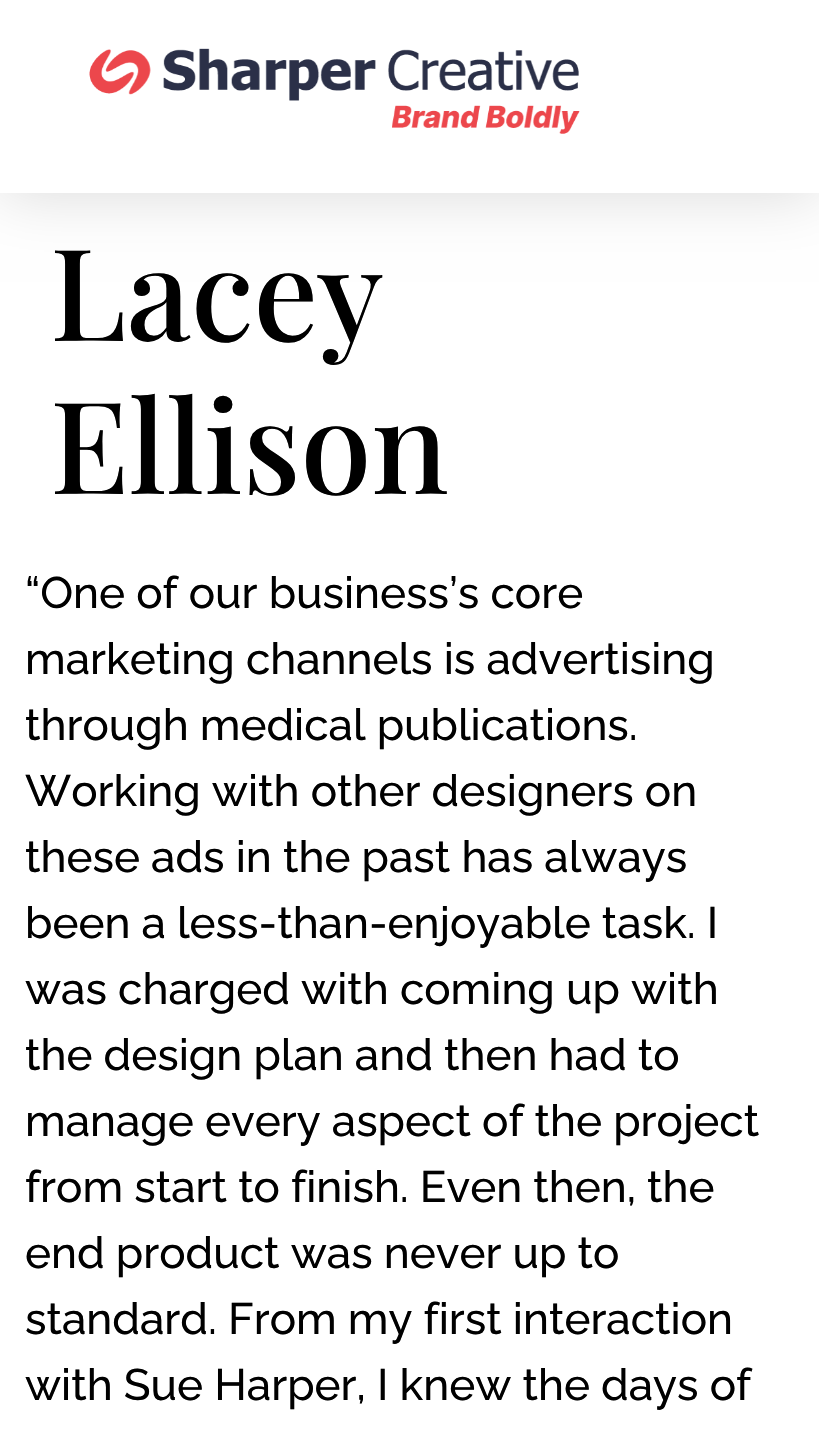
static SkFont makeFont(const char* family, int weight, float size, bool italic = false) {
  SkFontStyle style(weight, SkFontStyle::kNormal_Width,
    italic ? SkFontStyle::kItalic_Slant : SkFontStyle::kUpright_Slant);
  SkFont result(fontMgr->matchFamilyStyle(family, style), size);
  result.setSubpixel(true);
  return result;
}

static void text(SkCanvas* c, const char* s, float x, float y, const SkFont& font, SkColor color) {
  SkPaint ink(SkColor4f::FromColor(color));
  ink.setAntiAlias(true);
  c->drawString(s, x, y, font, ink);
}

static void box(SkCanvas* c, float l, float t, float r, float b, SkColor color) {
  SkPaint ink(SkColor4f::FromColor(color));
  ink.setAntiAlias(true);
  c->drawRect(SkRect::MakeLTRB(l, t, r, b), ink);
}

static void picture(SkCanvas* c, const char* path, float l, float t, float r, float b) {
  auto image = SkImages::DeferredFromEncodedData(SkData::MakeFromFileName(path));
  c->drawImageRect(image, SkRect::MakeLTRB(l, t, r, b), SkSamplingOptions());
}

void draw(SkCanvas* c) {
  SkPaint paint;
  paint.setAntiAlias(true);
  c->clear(0xffffffff);
  paint.setColor(0x26000000);
  paint.setMaskFilter(SkMaskFilter::MakeBlur(kNormal_SkBlurStyle, 30));
  c->drawRect(SkRect::MakeLTRB(0, 0, 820, 193), paint);
  paint.setMaskFilter(nullptr);
  box(c, 0, 0, 819, 193, 0xffffffff);
  picture(c, "img_01.png", 89, 48, 580, 134);
  SkFont face1 = makeFont("Playfair Display", 500, 128);
  text(c, "Lacey", 50, 341, face1, 0xff000000);
  text(c, "Ellison", 50, 494, face1, 0xff000000);
  SkFont face2 = makeFont("Raleway", 500, 44);
  text(c, "“One of our business’s core", 25, 608, face2, 0xff000000);
  text(c, "marketing channels is advertising", 25, 674, face2, 0xff000000);
  text(c, "through medical publications.", 25, 740, face2, 0xff000000);
  text(c, "Working with other designers on", 25, 806, face2, 0xff000000);
  text(c, "these ads in the past has always", 25, 872, face2, 0xff000000);
  text(c, "been a less-than-enjoyable task. I", 25, 938, face2, 0xff000000);
  text(c, "was charged with coming up with", 25, 1004, face2, 0xff000000);
  text(c, "the design plan and then had to", 25, 1070, face2, 0xff000000);
  text(c, "manage every aspect of the project", 25, 1136, face2, 0xff000000);
  text(c, "from start to finish. Even then, the", 25, 1202, face2, 0xff000000);
  text(c, "end product was never up to", 25, 1268, face2, 0xff000000);
  text(c, "standard. From my first interaction", 25, 1334, face2, 0xff000000);
  text(c, "with Sue Harper, I knew the days of", 25, 1400, face2, 0xff000000);
}
